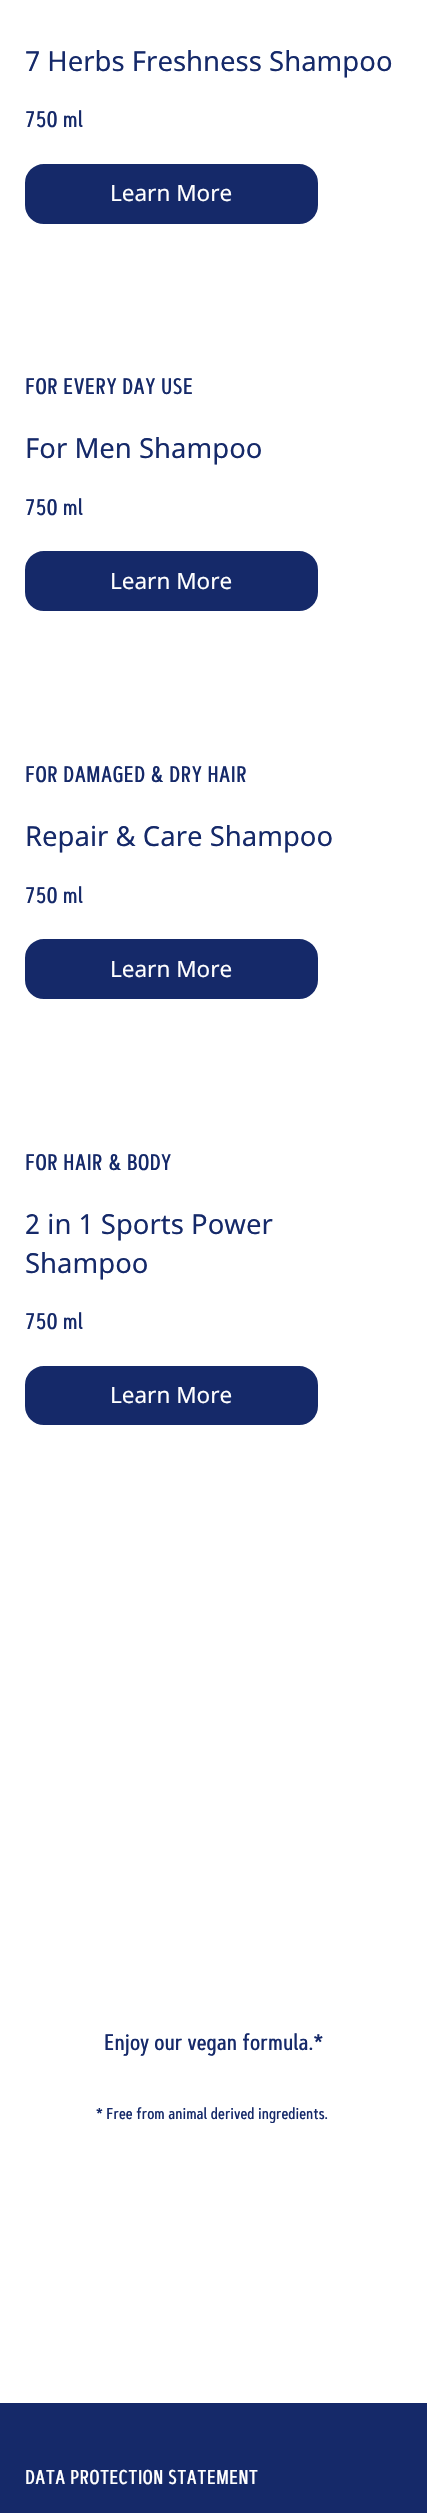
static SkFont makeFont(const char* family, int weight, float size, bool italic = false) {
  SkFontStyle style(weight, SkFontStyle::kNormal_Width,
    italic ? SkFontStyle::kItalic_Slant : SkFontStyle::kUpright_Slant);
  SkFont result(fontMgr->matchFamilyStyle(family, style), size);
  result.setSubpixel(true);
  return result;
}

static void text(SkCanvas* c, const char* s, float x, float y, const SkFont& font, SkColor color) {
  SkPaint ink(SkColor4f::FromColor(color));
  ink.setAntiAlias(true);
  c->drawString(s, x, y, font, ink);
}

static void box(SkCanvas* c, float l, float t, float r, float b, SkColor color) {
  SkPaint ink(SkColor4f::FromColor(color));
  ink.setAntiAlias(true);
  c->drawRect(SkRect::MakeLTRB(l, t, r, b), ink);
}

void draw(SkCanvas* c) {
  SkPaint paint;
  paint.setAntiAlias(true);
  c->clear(0xffffffff);
  SkFont face1 = makeFont("Noto Sans", 400, 27.5f);
  text(c, "7 Herbs Freshness Shampoo", 25, 71, face1, 0xff152969);
  SkFont face2 = makeFont("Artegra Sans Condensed", 500, 22.5f);
  text(c, "750 ml", 25, 127, face2, 0xff152969);
  paint.setColor(0xff152969);
  c->drawRoundRect(SkRect::MakeLTRB(26.5f, 165.5f, 316.5f, 222.5f), 17.5f, 17.5f, paint);
  paint.setStyle(SkPaint::kStroke_Style);
  paint.setStrokeWidth(3);
  c->drawRoundRect(SkRect::MakeLTRB(26.5f, 165.5f, 316.5f, 222.5f), 17.5f, 17.5f, paint);
  SkFont face3 = makeFont("Noto Sans", 400, 22.5f);
  text(c, "Learn More", 110, 201, face3, 0xffffffff);
  text(c, "FOR EVERY DAY USE", 25, 394, face2, 0xff152969);
  text(c, "For Men Shampoo", 25, 458, face1, 0xff152969);
  text(c, "750 ml", 25, 515, face2, 0xff152969);
  paint.setStyle(SkPaint::kFill_Style);
  c->drawRoundRect(SkRect::MakeLTRB(26.5f, 552.5f, 316.5f, 609.5f), 17.5f, 17.5f, paint);
  paint.setStyle(SkPaint::kStroke_Style);
  c->drawRoundRect(SkRect::MakeLTRB(26.5f, 552.5f, 316.5f, 609.5f), 17.5f, 17.5f, paint);
  text(c, "Learn More", 110, 589, face3, 0xffffffff);
  text(c, "FOR DAMAGED & DRY HAIR", 25, 782, face2, 0xff152969);
  text(c, "Repair & Care Shampoo", 25, 846, face1, 0xff152969);
  text(c, "750 ml", 25, 903, face2, 0xff152969);
  paint.setStyle(SkPaint::kFill_Style);
  c->drawRoundRect(SkRect::MakeLTRB(26.5f, 940.5f, 316.5f, 997.5f), 17.5f, 17.5f, paint);
  paint.setStyle(SkPaint::kStroke_Style);
  c->drawRoundRect(SkRect::MakeLTRB(26.5f, 940.5f, 316.5f, 997.5f), 17.5f, 17.5f, paint);
  text(c, "Learn More", 110, 977, face3, 0xffffffff);
  text(c, "FOR HAIR & BODY", 25, 1170, face2, 0xff152969);
  text(c, "2 in 1 Sports Power", 25, 1234, face1, 0xff152969);
  text(c, "Shampoo", 25, 1273, face1, 0xff152969);
  text(c, "750 ml", 25, 1329, face2, 0xff152969);
  paint.setStyle(SkPaint::kFill_Style);
  c->drawRoundRect(SkRect::MakeLTRB(26.5f, 1367.5f, 316.5f, 1423.5f), 17.5f, 17.5f, paint);
  paint.setStyle(SkPaint::kStroke_Style);
  c->drawRoundRect(SkRect::MakeLTRB(26.5f, 1367.5f, 316.5f, 1423.5f), 17.5f, 17.5f, paint);
  text(c, "Learn More", 110, 1403, face3, 0xffffffff);
  text(c, "Enjoy our vegan formula.*", 104, 2050, face2, 0xff152969);
  SkFont face4 = makeFont("Artegra Sans Condensed", 500, 15.75f);
  text(c, "* Free from animal derived ingredients.", 96, 2119, face4, 0xff152969);
  box(c, 0, 2403, 427, 2513, 0xff152969);
  SkFont face5 = makeFont("Artegra Sans Condensed", 500, 20);
  text(c, "DATA PROTECTION STATEMENT", 25, 2484, face5, 0xffffffff);
}
